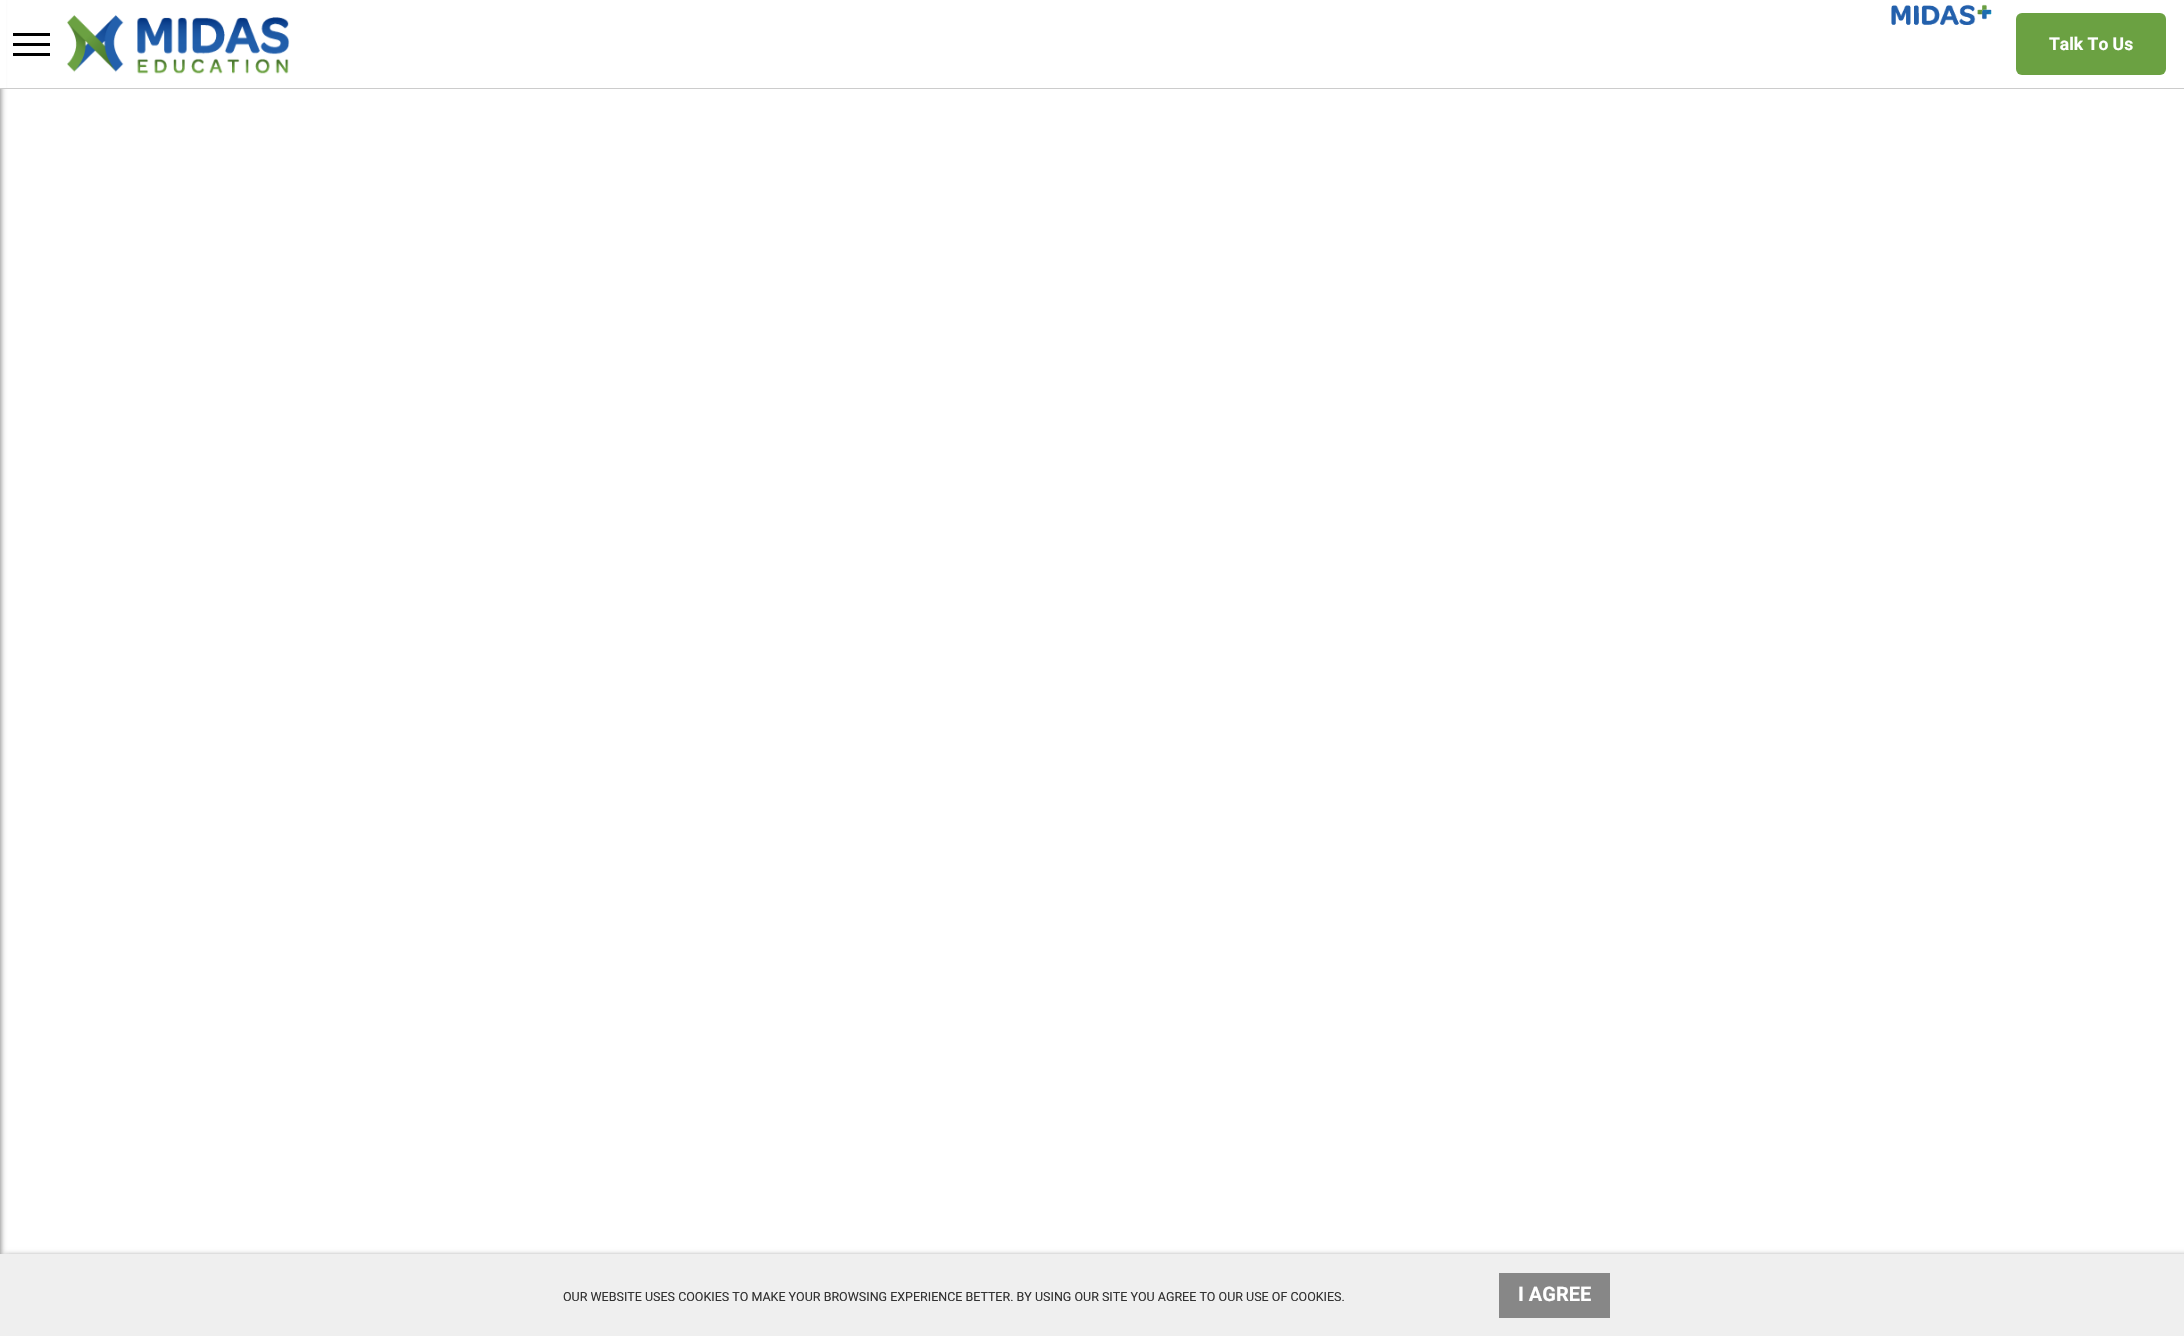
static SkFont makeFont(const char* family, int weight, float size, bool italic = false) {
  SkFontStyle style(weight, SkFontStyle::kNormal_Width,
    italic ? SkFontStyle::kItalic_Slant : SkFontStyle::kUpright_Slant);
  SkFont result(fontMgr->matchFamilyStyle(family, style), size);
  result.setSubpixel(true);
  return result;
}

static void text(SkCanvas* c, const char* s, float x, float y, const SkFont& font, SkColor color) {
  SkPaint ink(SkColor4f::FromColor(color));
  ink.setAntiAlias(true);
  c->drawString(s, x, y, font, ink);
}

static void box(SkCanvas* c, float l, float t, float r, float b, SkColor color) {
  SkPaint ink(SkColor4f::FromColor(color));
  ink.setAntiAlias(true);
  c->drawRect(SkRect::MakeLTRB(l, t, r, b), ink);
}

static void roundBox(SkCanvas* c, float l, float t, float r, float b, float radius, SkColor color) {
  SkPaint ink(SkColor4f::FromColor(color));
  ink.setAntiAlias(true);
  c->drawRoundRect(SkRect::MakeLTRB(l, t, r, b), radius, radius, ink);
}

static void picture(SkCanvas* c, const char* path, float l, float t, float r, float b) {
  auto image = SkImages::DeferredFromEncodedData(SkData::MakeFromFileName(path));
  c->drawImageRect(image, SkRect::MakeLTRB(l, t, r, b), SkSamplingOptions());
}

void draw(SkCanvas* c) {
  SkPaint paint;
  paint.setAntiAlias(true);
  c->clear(0xffffffff);
  paint.setColor(0xff666666);
  paint.setMaskFilter(SkMaskFilter::MakeBlur(kNormal_SkBlurStyle, 3));
  c->drawRect(SkRect::MakeLTRB(-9, 0, 0, 1336), paint);
  paint.setMaskFilter(nullptr);
  box(c, 0, 0, 6, 88, 0xffffffff);
  box(c, 0, 88, 2184, 89, 0xffcccccc);
  box(c, 13, 33, 50, 36, 0xff000000);
  box(c, 13, 43, 50, 46, 0xff000000);
  box(c, 13, 53, 50, 56, 0xff000000);
  picture(c, "img_01.png", 67, 15, 290, 74);
  picture(c, "img_02.png", 1891, 4, 1992, 25);
  roundBox(c, 2016, 13, 2166, 75, 6, 0xff6ba142);
  SkFont face1 = makeFont("Roboto", 700, 17.5f);
  text(c, "Talk To Us", 2049, 50, face1, 0xffffffff);
  paint.setColor(0x99000000);
  paint.setMaskFilter(SkMaskFilter::MakeBlur(kNormal_SkBlurStyle, 3));
  c->drawRect(SkRect::MakeLTRB(4, 1256, 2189, 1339), paint);
  paint.setMaskFilter(nullptr);
  box(c, 0, 1254, 2184, 1336, 0xffefefef);
  SkFont face2 = makeFont("Roboto", 400, 12.5f);
  text(c, "OUR WEBSITE USES COOKIES TO MAKE YOUR BROWSING EXPERIENCE BETTER. BY USING OUR SITE YOU AGREE TO OUR USE OF COOKIES.", 563, 1301, face2, 0xff323232);
  box(c, 1499, 1273, 1610, 1318, 0xff878787);
  SkFont face3 = makeFont("Roboto", 700, 20);
  text(c, "I AGREE", 1518, 1301, face3, 0xffffffff);
}
